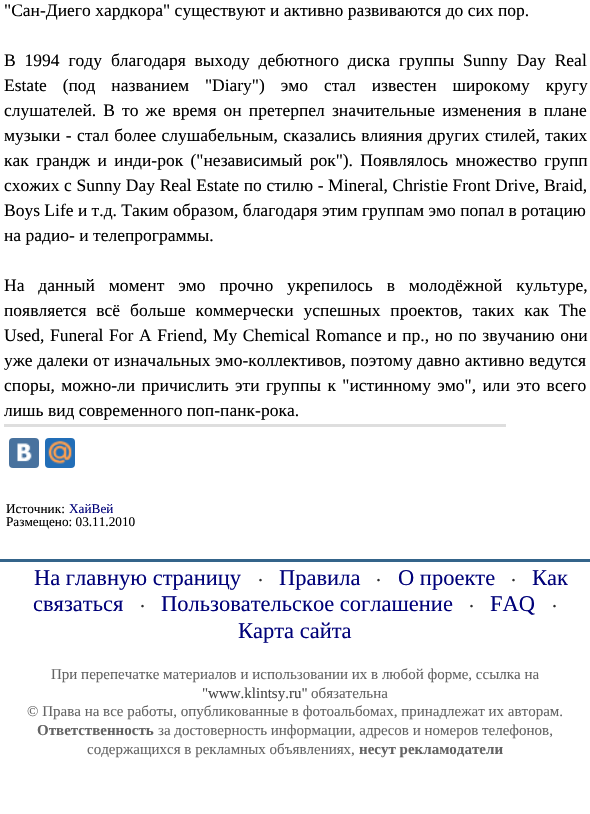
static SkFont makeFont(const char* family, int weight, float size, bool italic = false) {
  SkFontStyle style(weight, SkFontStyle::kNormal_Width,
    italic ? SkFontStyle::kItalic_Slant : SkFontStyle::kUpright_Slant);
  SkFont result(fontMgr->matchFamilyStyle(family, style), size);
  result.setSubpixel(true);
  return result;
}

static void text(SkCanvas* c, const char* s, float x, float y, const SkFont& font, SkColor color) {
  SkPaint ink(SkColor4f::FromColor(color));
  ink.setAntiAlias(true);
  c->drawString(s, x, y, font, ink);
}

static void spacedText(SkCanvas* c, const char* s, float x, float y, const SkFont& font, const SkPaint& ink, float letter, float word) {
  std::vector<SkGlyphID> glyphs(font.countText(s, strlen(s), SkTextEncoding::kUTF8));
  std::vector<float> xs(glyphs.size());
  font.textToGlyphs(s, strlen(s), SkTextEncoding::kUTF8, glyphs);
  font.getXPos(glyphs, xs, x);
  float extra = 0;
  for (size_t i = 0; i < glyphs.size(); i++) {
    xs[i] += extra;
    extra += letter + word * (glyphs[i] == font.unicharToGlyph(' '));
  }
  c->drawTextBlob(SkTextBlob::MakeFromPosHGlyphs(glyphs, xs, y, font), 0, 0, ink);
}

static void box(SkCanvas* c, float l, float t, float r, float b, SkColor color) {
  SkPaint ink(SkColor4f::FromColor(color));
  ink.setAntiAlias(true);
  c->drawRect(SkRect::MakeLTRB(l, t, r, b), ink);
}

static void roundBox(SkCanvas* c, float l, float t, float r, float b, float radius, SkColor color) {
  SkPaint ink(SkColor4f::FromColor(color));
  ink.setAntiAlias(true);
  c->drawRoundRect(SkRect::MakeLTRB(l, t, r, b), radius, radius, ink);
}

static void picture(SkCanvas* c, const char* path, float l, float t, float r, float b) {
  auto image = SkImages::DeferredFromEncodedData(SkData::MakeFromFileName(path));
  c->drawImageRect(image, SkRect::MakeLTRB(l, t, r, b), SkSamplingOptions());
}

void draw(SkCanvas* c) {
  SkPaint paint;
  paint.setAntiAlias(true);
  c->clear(0xffffffff);
  SkFont face1 = makeFont("Liberation Serif", 400, 17.5f);
  text(c, "\"Сан-Диего хардкора\" существуют и активно развиваются до сих пор.", 4, 16, face1, 0xff000000);
  paint.setColor(0xff000000);
  spacedText(c, "В 1994 году благодаря выходу дебютного диска группы Sunny Day Real", 4, 66, face1, paint, 0, 4.5f);
  spacedText(c, "Estate (под названием \"Diary\") эмо стал известен широкому кругу", 4, 91, face1, paint, 0, 11.5f);
  spacedText(c, "слушателей. В то же время он претерпел значительные изменения в плане", 4, 116, face1, paint, 0, 2.75f);
  spacedText(c, "музыки - стал более слушабельным, сказались влияния других стилей, таких", 4, 141, face1, paint, 0, 1);
  spacedText(c, "как грандж и инди-рок (\"независимый рок\"). Появлялось множество групп", 4, 166, face1, paint, 0, 3);
  spacedText(c, "схожих с Sunny Day Real Estate по стилю - Mineral, Christie Front Drive, Braid,", 4, 191, face1, paint, 0, 0.25f);
  text(c, "Boys Life и т.д. Таким образом, благодаря этим группам эмо попал в ротацию", 4, 216, face1, 0xff000000);
  text(c, "на радио- и телепрограммы.", 4, 241, face1, 0xff000000);
  spacedText(c, "На данный момент эмо прочно укрепилось в молодёжной культуре,", 4, 291, face1, paint, 0, 9.5f);
  spacedText(c, "появляется всё больше коммерчески успешных проектов, таких как The", 4, 316, face1, paint, 0, 5.5f);
  spacedText(c, "Used, Funeral For A Friend, My Chemical Romance и пр., но по звучанию они", 4, 341, face1, paint, 0, 1.25f);
  spacedText(c, "уже далеки от изначальных эмо-коллективов, поэтому давно активно ведутся", 4, 366, face1, paint, 0, 0.25f);
  spacedText(c, "споры, можно-ли причислить эти группы к \"истинному эмо\", или это всего", 4, 391, face1, paint, 0, 2);
  text(c, "лишь вид современного поп-панк-рока.", 4, 416, face1, 0xff000000);
  box(c, 4, 424, 506, 427, 0xffdedede);
  roundBox(c, 9, 438, 39, 468, 4, 0xff48729e);
  picture(c, "img_01.png", 17, 443, 32, 462);
  roundBox(c, 45, 438, 75, 468, 4, 0xff226eb7);
  picture(c, "img_02.png", 48, 440, 72, 464);
  SkFont face2 = makeFont("Liberation Serif", 400, 13.25f);
  text(c, "Источник:", 6, 513, face2, 0xff000000);
  text(c, "ХайВей", 69, 513, face2, 0xff000179);
  text(c, "Размещено: 03.11.2010", 6, 526, face2, 0xff000000);
  box(c, 0, 559, 590, 562, 0xff34648a);
  SkFont face3 = makeFont("Liberation Serif", 400, 22.5f);
  text(c, "На главную страницу", 34, 585, face3, 0xff000179);
  SkFont face4 = makeFont("Liberation Serif", 700, 15);
  text(c, "·", 258, 585, face4, 0xff2e2e2e);
  text(c, "Правила", 279, 585, face3, 0xff000179);
  text(c, "·", 376, 585, face4, 0xff2e2e2e);
  text(c, "О проекте", 398, 585, face3, 0xff000179);
  text(c, "·", 511, 585, face4, 0xff2e2e2e);
  text(c, "Как", 532, 585, face3, 0xff000179);
  text(c, "связаться", 33, 611, face3, 0xff000179);
  text(c, "·", 140, 611, face4, 0xff2e2e2e);
  text(c, "Пользовательское соглашение", 161, 611, face3, 0xff000179);
  text(c, "·", 469, 611, face4, 0xff2e2e2e);
  text(c, "FAQ", 490, 611, face3, 0xff000179);
  text(c, "·", 552, 611, face4, 0xff2e2e2e);
  text(c, "Карта сайта", 238, 638, face3, 0xff000179);
  SkFont face5 = makeFont("Liberation Serif", 400, 15);
  text(c, "При перепечатке материалов и использовании их в любой форме, ссылка на", 51, 679, face5, 0xff646464);
  text(c, "\"www.klintsy.ru\"", 202, 698, face5, 0xff484848);
  text(c, "обязательна", 311, 698, face5, 0xff646464);
  text(c, "© Права на все работы, опубликованные в фотоальбомах, принадлежат их авторам.", 27, 716, face5, 0xff646464);
  text(c, "Ответственность", 37, 735, face4, 0xff646464);
  text(c, "за достоверность информации, адресов и номеров телефонов,", 158, 735, face5, 0xff646464);
  text(c, "содержащихся в рекламных объявлениях,", 87, 754, face5, 0xff646464);
  text(c, "несут рекламодатели", 359, 754, face4, 0xff646464);
}
